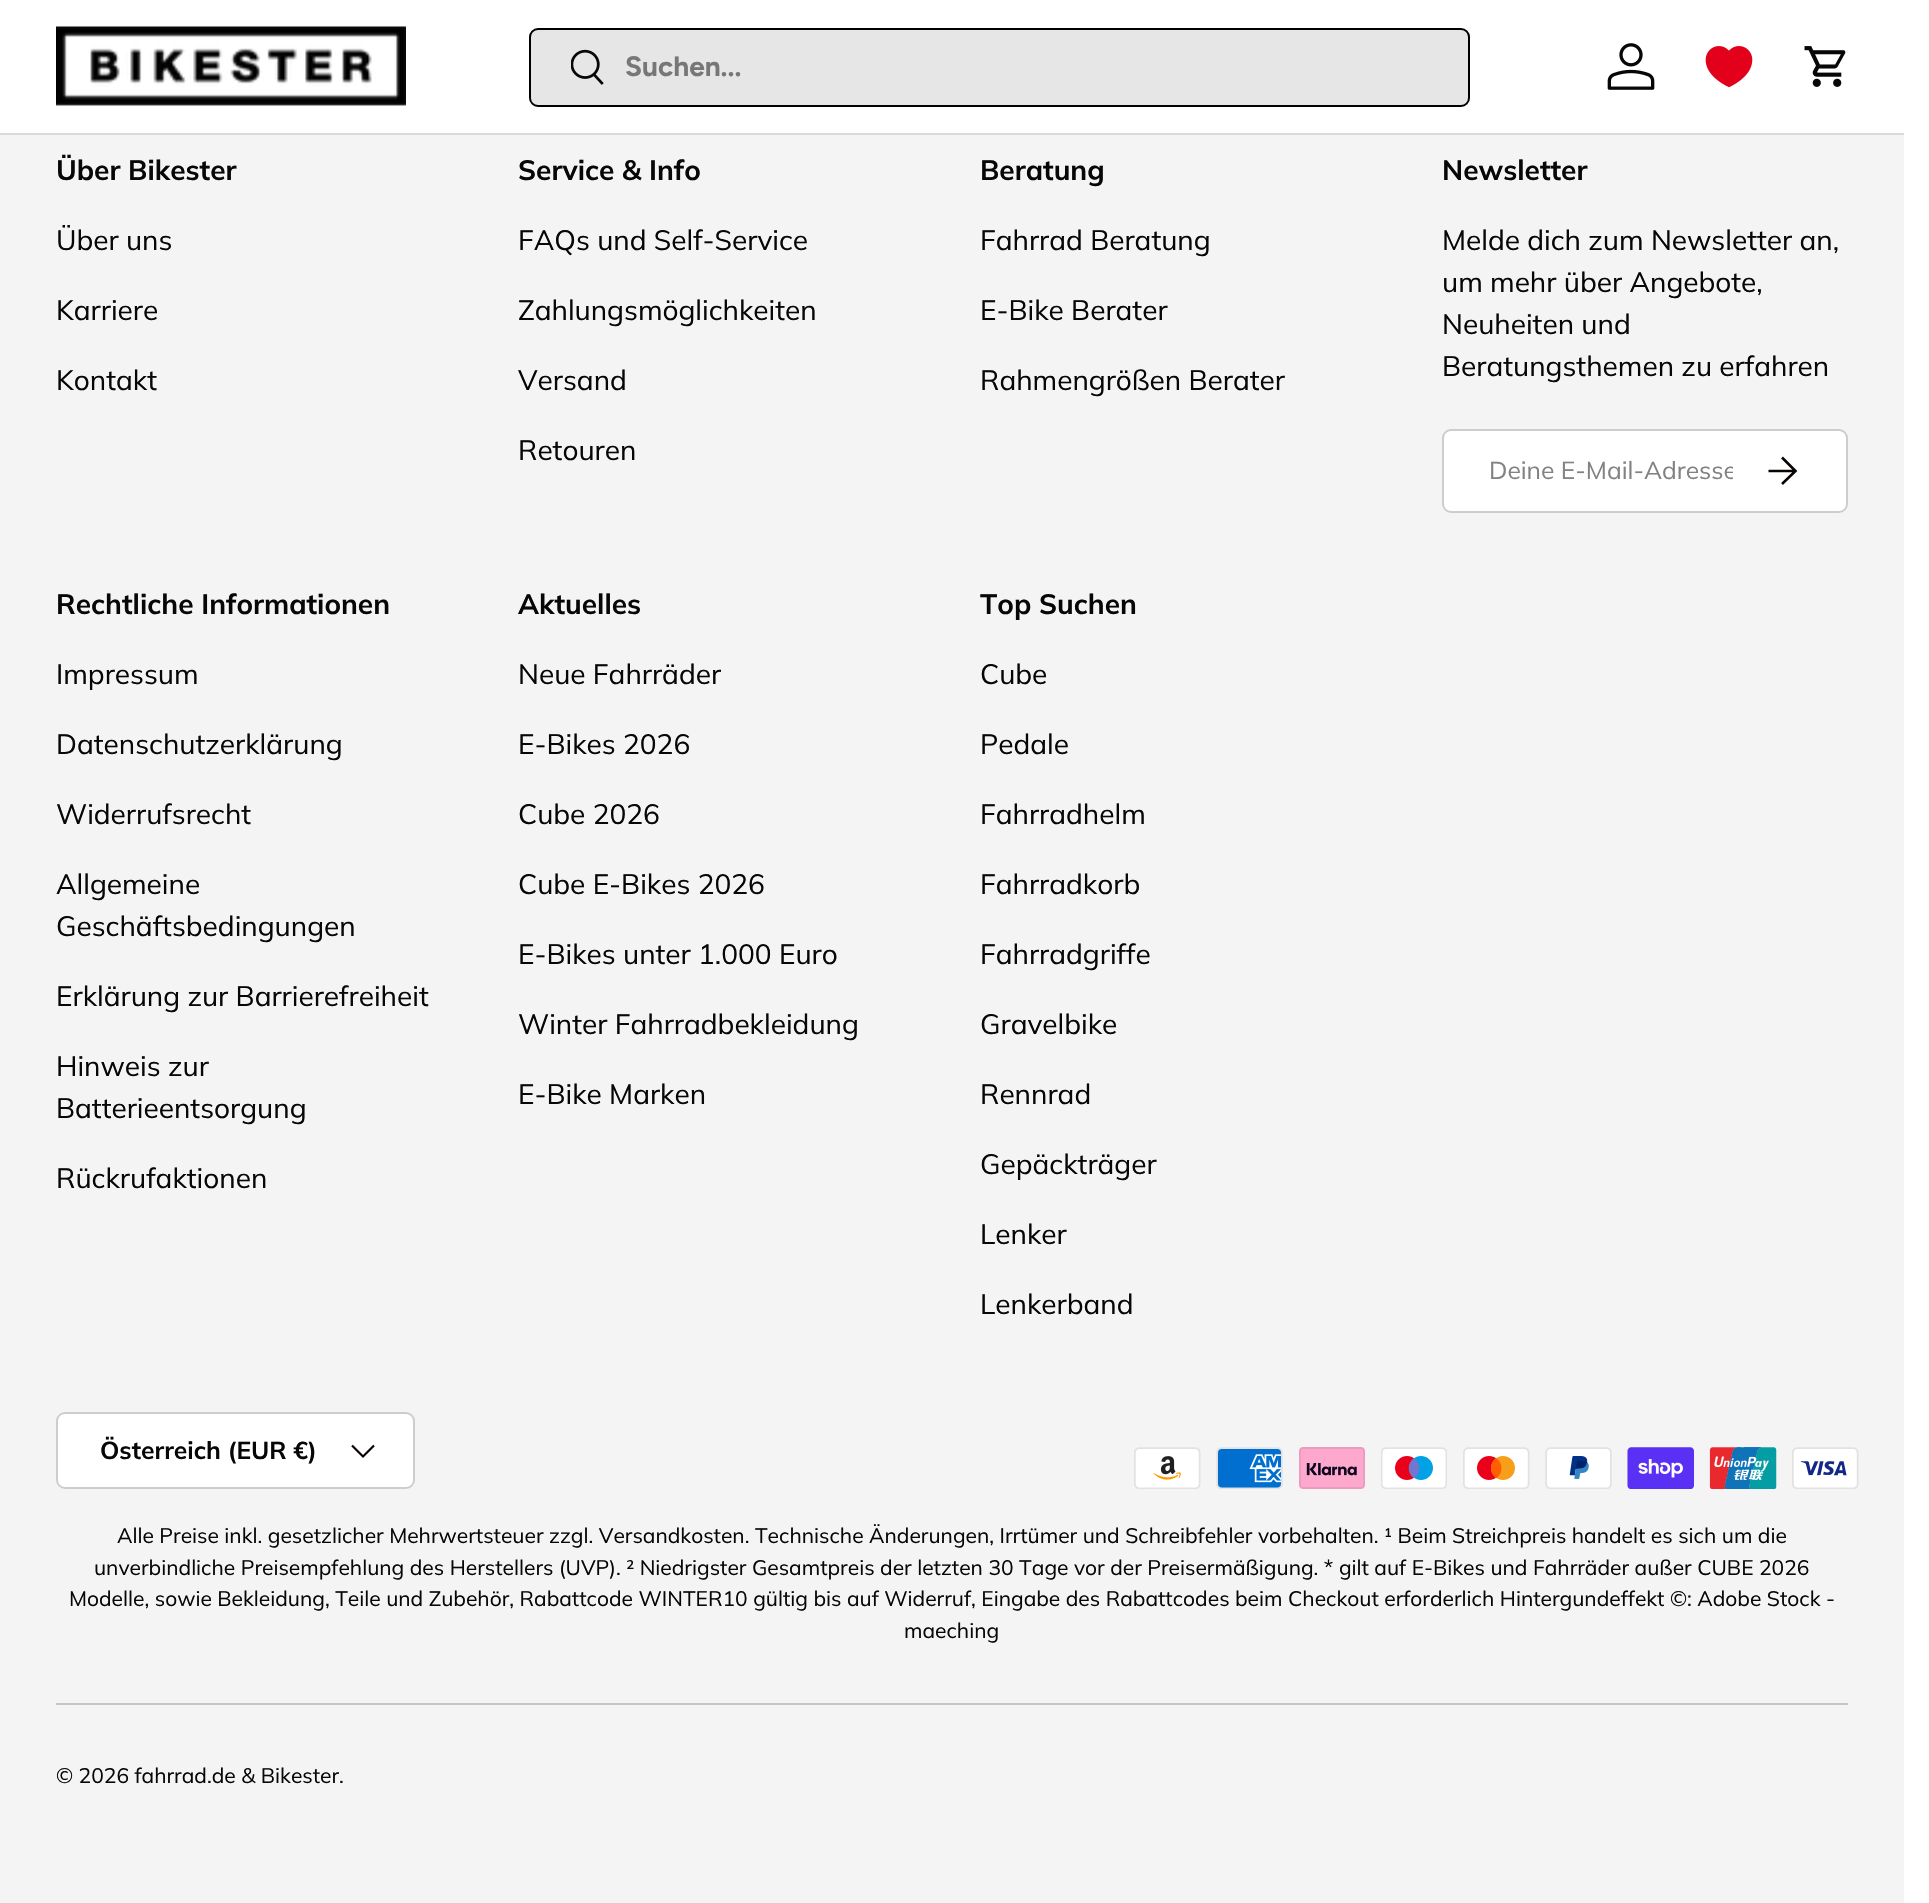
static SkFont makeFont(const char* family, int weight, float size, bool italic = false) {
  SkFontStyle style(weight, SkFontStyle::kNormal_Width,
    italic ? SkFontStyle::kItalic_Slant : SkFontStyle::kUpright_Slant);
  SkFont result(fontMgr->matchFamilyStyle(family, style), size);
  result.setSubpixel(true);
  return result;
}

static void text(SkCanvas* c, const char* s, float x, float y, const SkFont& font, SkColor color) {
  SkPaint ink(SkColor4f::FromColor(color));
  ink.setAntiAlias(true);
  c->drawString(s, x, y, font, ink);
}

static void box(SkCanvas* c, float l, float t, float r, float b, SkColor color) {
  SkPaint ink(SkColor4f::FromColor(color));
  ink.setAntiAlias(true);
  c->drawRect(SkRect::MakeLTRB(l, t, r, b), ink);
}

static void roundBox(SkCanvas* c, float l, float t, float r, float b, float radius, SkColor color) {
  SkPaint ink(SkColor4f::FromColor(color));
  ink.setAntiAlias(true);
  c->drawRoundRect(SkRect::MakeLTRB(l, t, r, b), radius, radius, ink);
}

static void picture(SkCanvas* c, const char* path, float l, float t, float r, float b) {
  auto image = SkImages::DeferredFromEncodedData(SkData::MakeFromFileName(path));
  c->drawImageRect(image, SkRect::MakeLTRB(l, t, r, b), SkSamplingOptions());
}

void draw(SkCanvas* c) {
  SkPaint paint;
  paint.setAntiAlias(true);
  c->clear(0xffffffff);
  box(c, 0, 133, 1904, 135, 0xffdadada);
  picture(c, "img_01.png", 56, 26, 406, 106);
  paint.setColor(0xffe6e6e6);
  c->drawRoundRect(SkRect::MakeLTRB(530, 29, 1469, 106), 8, 8, paint);
  paint.setStyle(SkPaint::kStroke_Style);
  paint.setStrokeWidth(2);
  paint.setColor(0xff000000);
  c->drawRoundRect(SkRect::MakeLTRB(530, 29, 1469, 106), 8, 8, paint);
  picture(c, "img_02.png", 571, 49, 604, 85);
  SkFont face1 = makeFont("Figtree", 700, 28);
  text(c, "Suchen...", 625, 76, face1, 0xff777777);
  picture(c, "img_03.png", 1607, 43, 1655, 90);
  picture(c, "img_04.png", 1705, 46, 1753, 88);
  picture(c, "img_05.png", 1804, 46, 1846, 87);
  box(c, 0, 135, 1904, 1903, 0xfff4f4f4);
  SkFont face2 = makeFont("Muli", 700, 28);
  text(c, "Über Bikester", 56, 180, face2, 0xff070707);
  SkFont face3 = makeFont("Muli", 400, 28);
  text(c, "Über uns", 56, 250, face3, 0xff070707);
  text(c, "Karriere", 56, 320, face3, 0xff070707);
  text(c, "Kontakt", 56, 390, face3, 0xff070707);
  text(c, "Service & Info", 518, 180, face2, 0xff070707);
  text(c, "FAQs und Self-Service", 518, 250, face3, 0xff070707);
  text(c, "Zahlungsmöglichkeiten", 518, 320, face3, 0xff070707);
  text(c, "Versand", 518, 390, face3, 0xff070707);
  text(c, "Retouren", 518, 460, face3, 0xff070707);
  text(c, "Beratung", 980, 180, face2, 0xff070707);
  text(c, "Fahrrad Beratung", 980, 250, face3, 0xff070707);
  text(c, "E-Bike Berater", 980, 320, face3, 0xff070707);
  text(c, "Rahmengrößen Berater", 980, 390, face3, 0xff070707);
  text(c, "Newsletter", 1442, 180, face2, 0xff070707);
  text(c, "Melde dich zum Newsletter an,", 1442, 250, face3, 0xff070707);
  text(c, "um mehr über Angebote,", 1442, 292, face3, 0xff070707);
  text(c, "Neuheiten und", 1442, 334, face3, 0xff070707);
  text(c, "Beratungsthemen zu erfahren", 1442, 376, face3, 0xff070707);
  roundBox(c, 1442, 429, 1848, 513, 9, 0xffffffff);
  paint.setColor(0x33070707);
  c->drawRoundRect(SkRect::MakeLTRB(1443, 430, 1847, 512), 8, 8, paint);
  c->save();
  c->clipRect(SkRect::MakeLTRB(1489, 455, 1733, 487));
  SkFont face4 = makeFont("Muli", 400, 24.6f);
  text(c, "Deine E-Mail-Adresse", 1489, 479, face4, 0xff848181);
  c->restore();
  paint.setStrokeWidth(2.6f);
  paint.setColor(0xff090302);
  c->drawPath(SkPathBuilder().moveTo(1768.5f, 471).lineTo(1794.5f, 471).moveTo(1782, 457.5f).lineTo(1795.5f, 471).lineTo(1782, 484).detach(), paint);
  text(c, "Rechtliche Informationen", 56, 614, face2, 0xff070707);
  text(c, "Impressum", 56, 684, face3, 0xff070707);
  text(c, "Datenschutzerklärung", 56, 754, face3, 0xff070707);
  text(c, "Widerrufsrecht", 56, 824, face3, 0xff070707);
  text(c, "Allgemeine", 56, 894, face3, 0xff070707);
  text(c, "Geschäftsbedingungen", 56, 936, face3, 0xff070707);
  text(c, "Erklärung zur Barrierefreiheit", 56, 1006, face3, 0xff070707);
  text(c, "Hinweis zur", 56, 1076, face3, 0xff070707);
  text(c, "Batterieentsorgung", 56, 1118, face3, 0xff070707);
  text(c, "Rückrufaktionen", 56, 1188, face3, 0xff070707);
  text(c, "Aktuelles", 518, 614, face2, 0xff070707);
  text(c, "Neue Fahrräder", 518, 684, face3, 0xff070707);
  text(c, "E-Bikes 2026", 518, 754, face3, 0xff070707);
  text(c, "Cube 2026", 518, 824, face3, 0xff070707);
  text(c, "Cube E-Bikes 2026", 518, 894, face3, 0xff070707);
  text(c, "E-Bikes unter 1.000 Euro", 518, 964, face3, 0xff070707);
  text(c, "Winter Fahrradbekleidung", 518, 1034, face3, 0xff070707);
  text(c, "E-Bike Marken", 518, 1104, face3, 0xff070707);
  text(c, "Top Suchen", 980, 614, face2, 0xff070707);
  text(c, "Cube", 980, 684, face3, 0xff070707);
  text(c, "Pedale", 980, 754, face3, 0xff070707);
  text(c, "Fahrradhelm", 980, 824, face3, 0xff070707);
  text(c, "Fahrradkorb", 980, 894, face3, 0xff070707);
  text(c, "Fahrradgriffe", 980, 964, face3, 0xff070707);
  text(c, "Gravelbike", 980, 1034, face3, 0xff070707);
  text(c, "Rennrad", 980, 1104, face3, 0xff070707);
  text(c, "Gepäckträger", 980, 1174, face3, 0xff070707);
  text(c, "Lenker", 980, 1244, face3, 0xff070707);
  text(c, "Lenkerband", 980, 1314, face3, 0xff070707);
  roundBox(c, 56, 1412, 415, 1489, 9, 0xffffffff);
  paint.setStrokeWidth(2);
  paint.setColor(0x33070707);
  c->drawRoundRect(SkRect::MakeLTRB(57, 1413, 414, 1488), 8, 8, paint);
  SkFont face5 = makeFont("Muli", 700, 24.6f);
  text(c, "Österreich (EUR €)", 100, 1459, face5, 0xff070707);
  paint.setStrokeWidth(2.2f);
  paint.setColor(0xff090302);
  c->drawPath(SkPathBuilder().moveTo(374, 1445.5f).lineTo(363, 1456.5f).lineTo(352, 1445.5f).detach(), paint);
  picture(c, "img_06.png", 1134, 1447, 1201, 1489);
  picture(c, "img_07.png", 1216, 1447, 1283, 1489);
  picture(c, "img_08.png", 1299, 1447, 1365, 1489);
  picture(c, "img_09.png", 1381, 1447, 1447, 1489);
  picture(c, "img_10.png", 1463, 1447, 1530, 1489);
  picture(c, "img_11.png", 1545, 1447, 1612, 1489);
  picture(c, "img_12.png", 1627, 1447, 1694, 1489);
  picture(c, "img_13.png", 1709, 1447, 1777, 1489);
  picture(c, "img_14.png", 1792, 1447, 1859, 1489);
  SkFont face6 = makeFont("Muli", 400, 21);
  text(c, "Alle Preise inkl. gesetzlicher Mehrwertsteuer zzgl. Versandkosten. Technische Änderungen, Irrtümer und Schreibfehler vorbehalten. ¹ Beim Streichpreis handelt es sich um die", 117, 1543, face6, 0xff070707);
  text(c, "unverbindliche Preisempfehlung des Herstellers (UVP). ² Niedrigster Gesamtpreis der letzten 30 Tage vor der Preisermäßigung. * gilt auf E-Bikes und Fahrräder außer CUBE 2026", 94, 1575, face6, 0xff070707);
  text(c, "Modelle, sowie Bekleidung, Teile und Zubehör, Rabattcode WINTER10 gültig bis auf Widerruf, Eingabe des Rabattcodes beim Checkout erforderlich Hintergundeffekt ©: Adobe Stock -", 69, 1606, face6, 0xff070707);
  text(c, "maeching", 904, 1638, face6, 0xff070707);
  box(c, 56, 1703, 1848, 1705, 0xffc5c5c5);
  text(c, "© 2026 fahrrad.de & Bikester.", 56, 1783, face6, 0xff070707);
}
